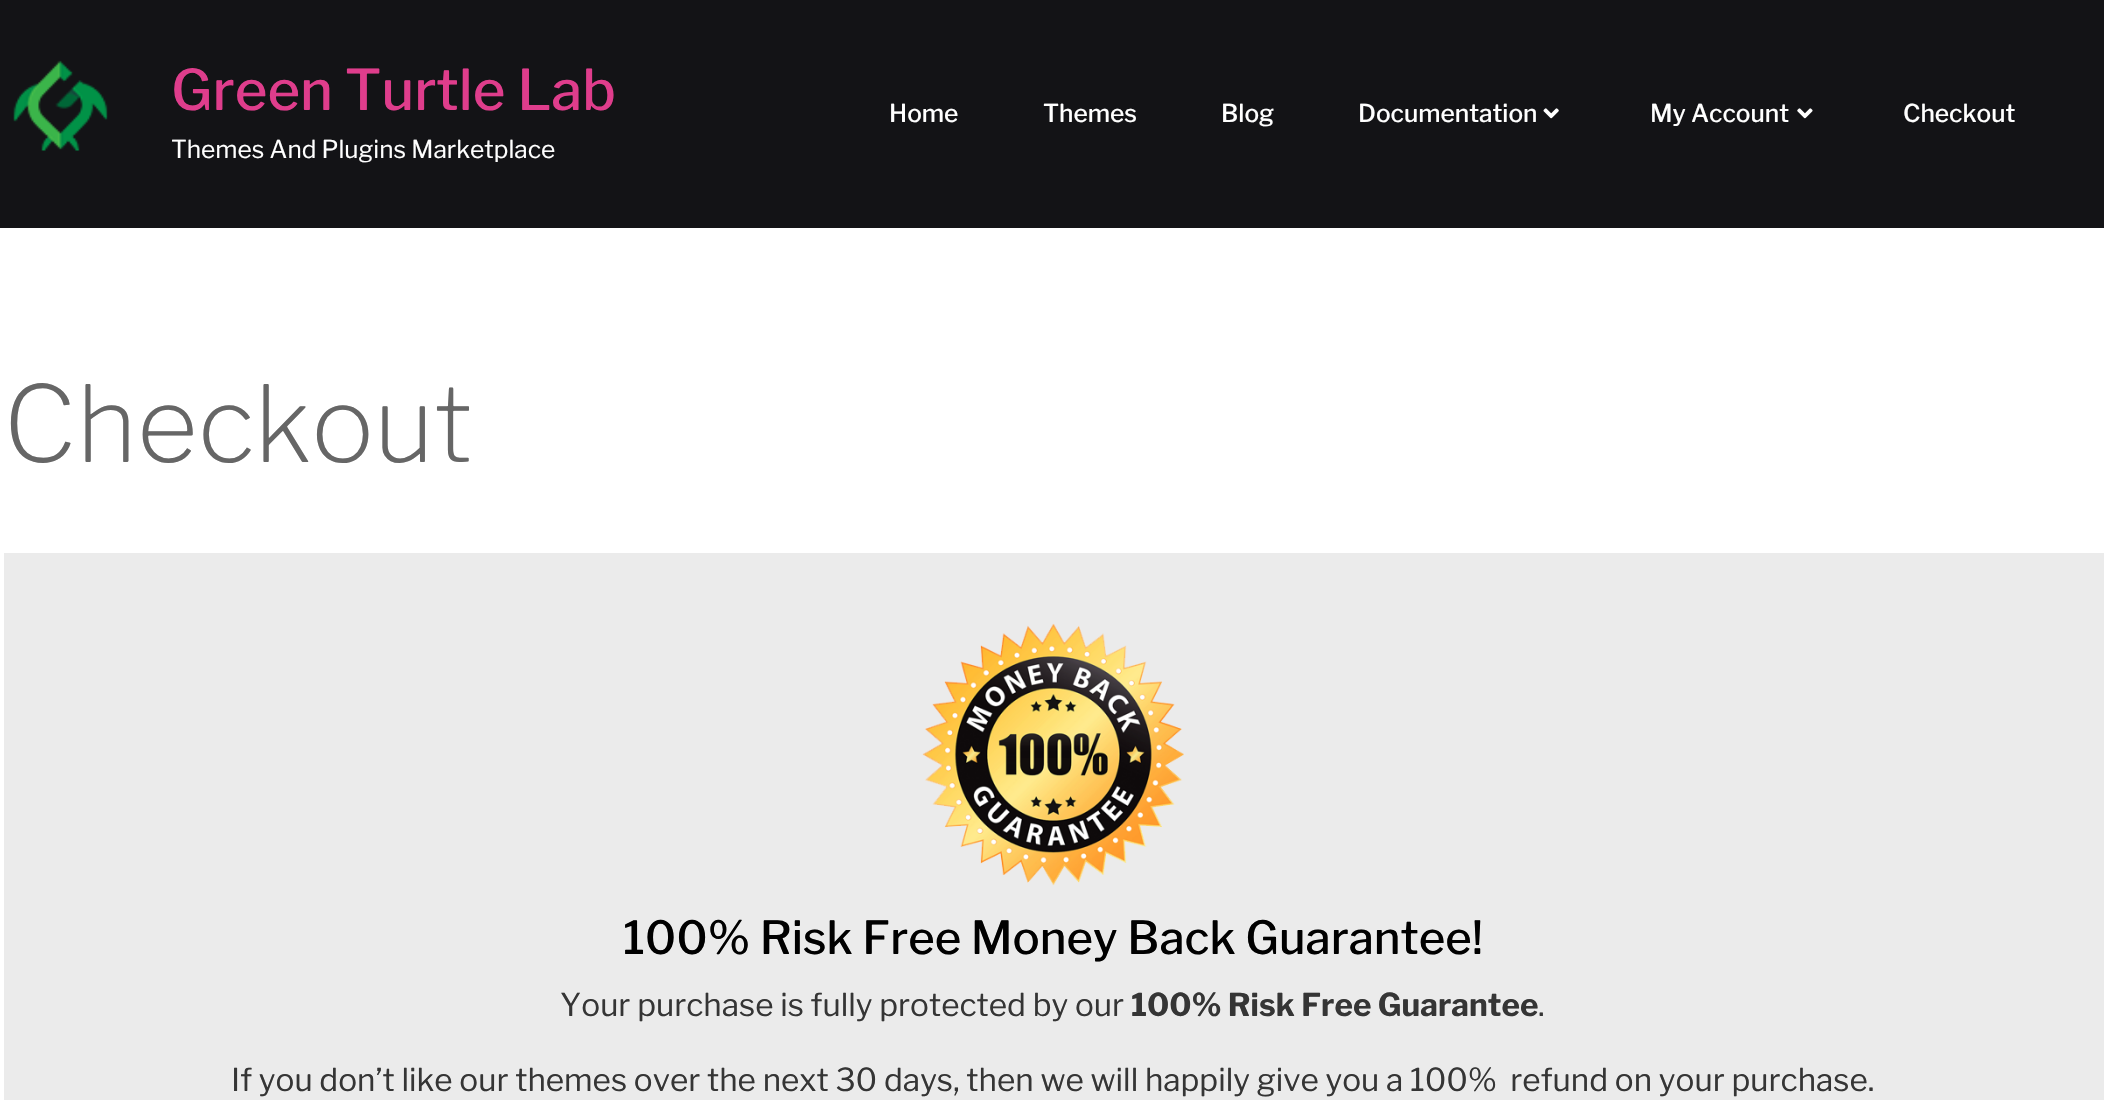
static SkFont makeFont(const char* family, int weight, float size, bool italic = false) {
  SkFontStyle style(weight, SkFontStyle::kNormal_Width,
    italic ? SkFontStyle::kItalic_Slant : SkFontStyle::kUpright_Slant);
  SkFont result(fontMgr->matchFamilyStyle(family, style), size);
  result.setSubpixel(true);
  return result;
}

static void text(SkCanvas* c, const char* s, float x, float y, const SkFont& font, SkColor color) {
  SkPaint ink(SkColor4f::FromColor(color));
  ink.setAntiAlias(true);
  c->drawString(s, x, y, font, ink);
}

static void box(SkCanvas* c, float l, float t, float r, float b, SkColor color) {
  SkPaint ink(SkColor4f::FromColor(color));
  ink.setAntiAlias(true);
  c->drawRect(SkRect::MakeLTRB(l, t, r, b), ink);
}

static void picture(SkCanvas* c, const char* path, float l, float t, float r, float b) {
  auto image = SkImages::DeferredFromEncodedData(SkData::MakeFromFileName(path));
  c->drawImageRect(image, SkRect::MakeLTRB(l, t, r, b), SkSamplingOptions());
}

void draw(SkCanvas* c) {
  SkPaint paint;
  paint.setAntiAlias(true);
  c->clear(0xffffffff);
  box(c, 0, 0, 2104, 228, 0xff131316);
  picture(c, "img_01.png", 13, 60, 108, 151);
  SkFont face1 = makeFont("Libre Franklin", 500, 56);
  text(c, "Green Turtle Lab", 171, 110, face1, 0xffdf3d8c);
  SkFont face2 = makeFont("Libre Franklin", 400, 24.5f);
  text(c, "Themes And Plugins Marketplace", 171, 158, face2, 0xffffffff);
  SkFont face3 = makeFont("Libre Franklin", 500, 24.5f);
  text(c, "Home", 889, 122, face3, 0xffffffff);
  text(c, "Themes", 1043, 122, face3, 0xffffffff);
  text(c, "Blog", 1221, 122, face3, 0xffffffff);
  text(c, "Documentation", 1358, 122, face3, 0xffffffff);
  picture(c, "img_02.png", 1543, 108, 1559, 119);
  text(c, "My Account", 1650, 122, face3, 0xffffffff);
  picture(c, "img_03.png", 1797, 108, 1813, 119);
  text(c, "Checkout", 1903, 122, face3, 0xffffffff);
  SkFont face4 = makeFont("Libre Franklin", 200, 105);
  text(c, "Checkout", 3, 462, face4, 0xff666666);
  box(c, 4, 553, 2104, 1100, 0xffebebeb);
  picture(c, "img_04.png", 922, 623, 1184, 886);
  SkFont face5 = makeFont("Libre Franklin", 500, 45.5f);
  text(c, "100% Risk Free Money Back Guarantee!", 623, 954, face5, 0xff000000);
  SkFont face6 = makeFont("Libre Franklin", 400, 31.5f);
  text(c, "Your purchase is fully protected by our", 560, 1016, face6, 0xff353535);
  SkFont face7 = makeFont("Libre Franklin", 700, 31.5f);
  text(c, "100% Risk Free Guarantee", 1131, 1016, face7, 0xff353535);
  text(c, ".", 1538, 1016, face6, 0xff353535);
  text(c, "If you don’t like our themes over the next 30 days, then we will happily give you a 100%  refund on your purchase.", 231, 1091, face6, 0xff353535);
}
